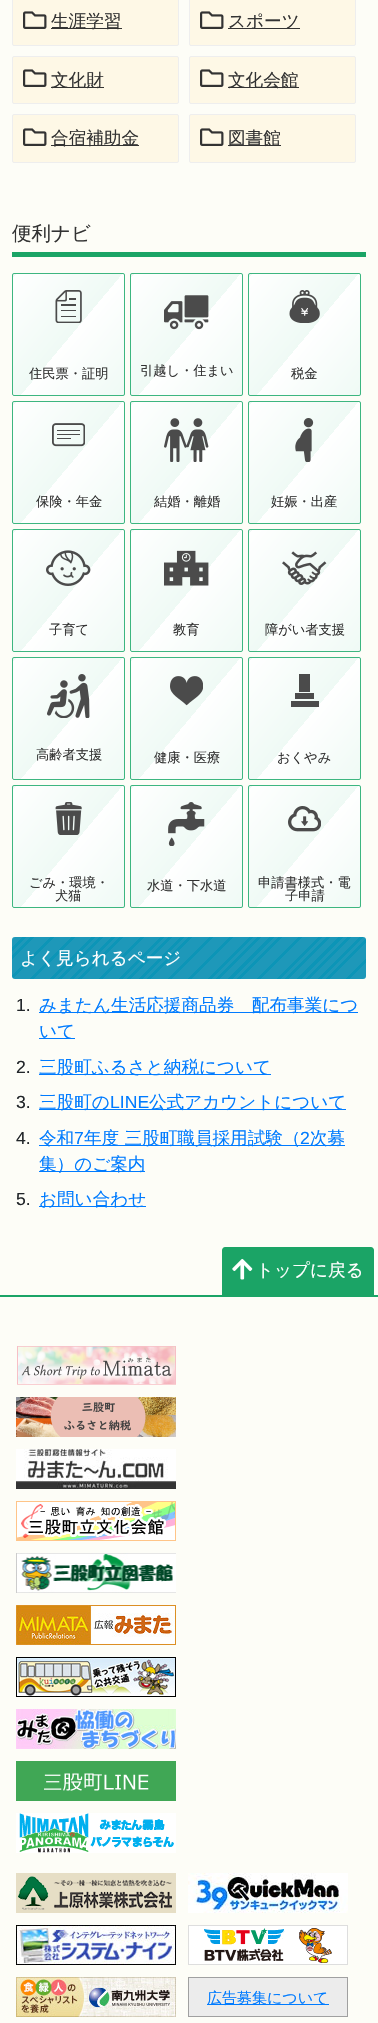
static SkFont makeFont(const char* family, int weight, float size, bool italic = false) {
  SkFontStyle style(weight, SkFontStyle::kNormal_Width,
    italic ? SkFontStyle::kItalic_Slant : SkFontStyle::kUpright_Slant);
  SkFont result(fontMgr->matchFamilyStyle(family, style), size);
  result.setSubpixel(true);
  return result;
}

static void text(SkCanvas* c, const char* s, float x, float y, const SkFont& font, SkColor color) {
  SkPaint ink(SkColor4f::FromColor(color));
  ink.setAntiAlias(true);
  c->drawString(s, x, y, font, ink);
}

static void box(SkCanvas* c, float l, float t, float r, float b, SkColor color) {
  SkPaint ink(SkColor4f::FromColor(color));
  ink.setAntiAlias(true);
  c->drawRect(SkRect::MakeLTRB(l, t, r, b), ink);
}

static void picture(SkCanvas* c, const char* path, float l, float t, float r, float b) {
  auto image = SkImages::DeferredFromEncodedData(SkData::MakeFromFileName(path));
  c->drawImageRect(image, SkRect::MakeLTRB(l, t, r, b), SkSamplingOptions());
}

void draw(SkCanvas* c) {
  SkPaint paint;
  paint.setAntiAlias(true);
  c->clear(0xfffdfdf7);
  paint.setColor(0xfffef8e6);
  c->drawRoundRect(SkRect::MakeLTRB(12.5f, -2.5f, 178.5f, 45.5f), 1.5f, 1.5f, paint);
  paint.setStyle(SkPaint::kStroke_Style);
  paint.setStrokeWidth(1);
  paint.setColor(0xffeeeeee);
  c->drawRoundRect(SkRect::MakeLTRB(12.5f, -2.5f, 178.5f, 45.5f), 1.5f, 1.5f, paint);
  picture(c, "img_01.png", 23, 11, 47, 29);
  box(c, 51, 28, 122, 29, 0xff333333);
  SkFont face1 = makeFont("WenQuanYi Zen Hei", 500, 17.6f);
  text(c, "生涯学習", 51, 27, face1, 0xff333333);
  paint.setStyle(SkPaint::kFill_Style);
  paint.setColor(0xfffef8e6);
  c->drawRoundRect(SkRect::MakeLTRB(189.5f, -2.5f, 355.5f, 45.5f), 1.5f, 1.5f, paint);
  paint.setStyle(SkPaint::kStroke_Style);
  paint.setColor(0xffeeeeee);
  c->drawRoundRect(SkRect::MakeLTRB(189.5f, -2.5f, 355.5f, 45.5f), 1.5f, 1.5f, paint);
  picture(c, "img_01.png", 200, 11, 224, 29);
  box(c, 228, 28, 300, 29, 0xff333333);
  text(c, "スポーツ", 228, 27, face1, 0xff333333);
  paint.setStyle(SkPaint::kFill_Style);
  paint.setColor(0xfffef8e6);
  c->drawRoundRect(SkRect::MakeLTRB(12.5f, 56.5f, 178.5f, 103.5f), 1.5f, 1.5f, paint);
  paint.setStyle(SkPaint::kStroke_Style);
  paint.setColor(0xffeeeeee);
  c->drawRoundRect(SkRect::MakeLTRB(12.5f, 56.5f, 178.5f, 103.5f), 1.5f, 1.5f, paint);
  picture(c, "img_01.png", 23, 69, 47, 87);
  box(c, 51, 87, 104, 88, 0xff333333);
  text(c, "文化財", 51, 86, face1, 0xff333333);
  paint.setStyle(SkPaint::kFill_Style);
  paint.setColor(0xfffef8e6);
  c->drawRoundRect(SkRect::MakeLTRB(189.5f, 56.5f, 355.5f, 103.5f), 1.5f, 1.5f, paint);
  paint.setStyle(SkPaint::kStroke_Style);
  paint.setColor(0xffeeeeee);
  c->drawRoundRect(SkRect::MakeLTRB(189.5f, 56.5f, 355.5f, 103.5f), 1.5f, 1.5f, paint);
  picture(c, "img_01.png", 200, 69, 224, 87);
  box(c, 228, 87, 299, 88, 0xff333333);
  text(c, "文化会館", 228, 86, face1, 0xff333333);
  paint.setStyle(SkPaint::kFill_Style);
  paint.setColor(0xfffef8e6);
  c->drawRoundRect(SkRect::MakeLTRB(12.5f, 114.5f, 178.5f, 162.5f), 1.5f, 1.5f, paint);
  paint.setStyle(SkPaint::kStroke_Style);
  paint.setColor(0xffeeeeee);
  c->drawRoundRect(SkRect::MakeLTRB(12.5f, 114.5f, 178.5f, 162.5f), 1.5f, 1.5f, paint);
  picture(c, "img_01.png", 23, 128, 47, 146);
  box(c, 51, 145, 139, 146, 0xff333333);
  text(c, "合宿補助金", 51, 144, face1, 0xff333333);
  paint.setStyle(SkPaint::kFill_Style);
  paint.setColor(0xfffef8e6);
  c->drawRoundRect(SkRect::MakeLTRB(189.5f, 114.5f, 355.5f, 162.5f), 1.5f, 1.5f, paint);
  paint.setStyle(SkPaint::kStroke_Style);
  paint.setColor(0xffeeeeee);
  c->drawRoundRect(SkRect::MakeLTRB(189.5f, 114.5f, 355.5f, 162.5f), 1.5f, 1.5f, paint);
  picture(c, "img_01.png", 200, 128, 224, 146);
  box(c, 228, 145, 281, 146, 0xff333333);
  text(c, "図書館", 228, 144, face1, 0xff333333);
  box(c, 12, 252, 366, 257, 0xff1ba466);
  SkFont face2 = makeFont("WenQuanYi Zen Hei", 500, 19.5f);
  text(c, "便利ナビ", 12, 240, face2, 0xff333333);
  paint.setStyle(SkPaint::kFill_Style);
  {
    const SkColor colors[] = {0xffeffaf5, 0xffffffff, 0xffeffaf5, 0xffffffff, 0xffeffaf5, 0xffffffff};
    const float stops[] = {0, 0.33f, 0.33f, 0.67f, 0.67f, 1};
    const SkPoint ends[] = {{20, 266}, {-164, 112}};
    paint.setShader(SkGradientShader::MakeLinear(ends, colors, stops, 6, SkTileMode::kClamp));
    paint.setAlpha(255);
  }
  c->drawRect(SkRect::MakeLTRB(12, 273, 13, 274), paint);
  {
    const SkColor colors[] = {0xffeffaf5, 0xffffffff, 0xffeffaf5, 0xffffffff, 0xffeffaf5, 0xffffffff};
    const float stops[] = {0, 0.33f, 0.33f, 0.67f, 0.67f, 1};
    const SkPoint ends[] = {{242, 266}, {58, 112}};
    paint.setShader(SkGradientShader::MakeLinear(ends, colors, stops, 6, SkTileMode::kClamp));
    paint.setAlpha(255);
  }
  c->drawRect(SkRect::MakeLTRB(124, 273, 125, 274), paint);
  {
    const SkColor colors[] = {0xffeffaf5, 0xffffffff, 0xffeffaf5, 0xffffffff, 0xffeffaf5, 0xffffffff};
    const float stops[] = {0, 0.33f, 0.33f, 0.67f, 0.67f, 1};
    const SkPoint ends[] = {{131, 387}, {-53, 233}};
    paint.setShader(SkGradientShader::MakeLinear(ends, colors, stops, 6, SkTileMode::kClamp));
    paint.setAlpha(255);
  }
  c->drawRect(SkRect::MakeLTRB(13, 274, 124, 395), paint);
  {
    const SkColor colors[] = {0xffeffaf5, 0xffffffff, 0xffeffaf5, 0xffffffff, 0xffeffaf5, 0xffffffff};
    const float stops[] = {0, 0.33f, 0.33f, 0.67f, 0.67f, 1};
    const SkPoint ends[] = {{20, 508}, {-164, 354}};
    paint.setShader(SkGradientShader::MakeLinear(ends, colors, stops, 6, SkTileMode::kClamp));
    paint.setAlpha(255);
  }
  c->drawRect(SkRect::MakeLTRB(12, 395, 13, 396), paint);
  {
    const SkColor colors[] = {0xffeffaf5, 0xffffffff, 0xffeffaf5, 0xffffffff, 0xffeffaf5, 0xffffffff};
    const float stops[] = {0, 0.33f, 0.33f, 0.67f, 0.67f, 1};
    const SkPoint ends[] = {{242, 508}, {58, 354}};
    paint.setShader(SkGradientShader::MakeLinear(ends, colors, stops, 6, SkTileMode::kClamp));
    paint.setAlpha(255);
  }
  c->drawRect(SkRect::MakeLTRB(124, 395, 125, 396), paint);
  paint.setStyle(SkPaint::kStroke_Style);
  paint.setShader(nullptr);
  paint.setColor(0xff3db680);
  c->drawRoundRect(SkRect::MakeLTRB(12.5f, 273.5f, 124.5f, 395.5f), 1.5f, 1.5f, paint);
  picture(c, "img_02.png", 55, 290, 82, 323);
  SkFont face3 = makeFont("WenQuanYi Zen Hei", 500, 13.25f);
  text(c, "住民票・証明", 29, 378, face3, 0xff333333);
  paint.setStyle(SkPaint::kFill_Style);
  {
    const SkColor colors[] = {0xffeffaf5, 0xffffffff, 0xffeffaf5, 0xffffffff, 0xffeffaf5, 0xffffffff};
    const float stops[] = {0, 0.33f, 0.33f, 0.67f, 0.67f, 1};
    const SkPoint ends[] = {{138, 266}, {-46, 112}};
    paint.setShader(SkGradientShader::MakeLinear(ends, colors, stops, 6, SkTileMode::kClamp));
    paint.setAlpha(255);
  }
  c->drawRect(SkRect::MakeLTRB(130, 273, 131, 274), paint);
  {
    const SkColor colors[] = {0xffeffaf5, 0xffffffff, 0xffeffaf5, 0xffffffff, 0xffeffaf5, 0xffffffff};
    const float stops[] = {0, 0.33f, 0.33f, 0.67f, 0.67f, 1};
    const SkPoint ends[] = {{360, 266}, {176, 112}};
    paint.setShader(SkGradientShader::MakeLinear(ends, colors, stops, 6, SkTileMode::kClamp));
    paint.setAlpha(255);
  }
  c->drawRect(SkRect::MakeLTRB(242, 273, 243, 274), paint);
  {
    const SkColor colors[] = {0xffeffaf5, 0xffffffff, 0xffeffaf5, 0xffffffff, 0xffeffaf5, 0xffffffff};
    const float stops[] = {0, 0.33f, 0.33f, 0.67f, 0.67f, 1};
    const SkPoint ends[] = {{249, 387}, {65, 233}};
    paint.setShader(SkGradientShader::MakeLinear(ends, colors, stops, 6, SkTileMode::kClamp));
    paint.setAlpha(255);
  }
  c->drawRect(SkRect::MakeLTRB(131, 274, 242, 395), paint);
  {
    const SkColor colors[] = {0xffeffaf5, 0xffffffff, 0xffeffaf5, 0xffffffff, 0xffeffaf5, 0xffffffff};
    const float stops[] = {0, 0.33f, 0.33f, 0.67f, 0.67f, 1};
    const SkPoint ends[] = {{138, 508}, {-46, 354}};
    paint.setShader(SkGradientShader::MakeLinear(ends, colors, stops, 6, SkTileMode::kClamp));
    paint.setAlpha(255);
  }
  c->drawRect(SkRect::MakeLTRB(130, 395, 131, 396), paint);
  {
    const SkColor colors[] = {0xffeffaf5, 0xffffffff, 0xffeffaf5, 0xffffffff, 0xffeffaf5, 0xffffffff};
    const float stops[] = {0, 0.33f, 0.33f, 0.67f, 0.67f, 1};
    const SkPoint ends[] = {{360, 508}, {176, 354}};
    paint.setShader(SkGradientShader::MakeLinear(ends, colors, stops, 6, SkTileMode::kClamp));
    paint.setAlpha(255);
  }
  c->drawRect(SkRect::MakeLTRB(242, 395, 243, 396), paint);
  paint.setStyle(SkPaint::kStroke_Style);
  paint.setShader(nullptr);
  paint.setColor(0xff3db680);
  c->drawRoundRect(SkRect::MakeLTRB(130.5f, 273.5f, 242.5f, 395.5f), 1.5f, 1.5f, paint);
  picture(c, "img_03.png", 164, 295, 209, 330);
  text(c, "引越し・住まい", 140, 375, face3, 0xff333333);
  paint.setStyle(SkPaint::kFill_Style);
  {
    const SkColor colors[] = {0xffeffaf5, 0xffffffff, 0xffeffaf5, 0xffffffff, 0xffeffaf5, 0xffffffff};
    const float stops[] = {0, 0.33f, 0.33f, 0.67f, 0.67f, 1};
    const SkPoint ends[] = {{256, 266}, {72, 112}};
    paint.setShader(SkGradientShader::MakeLinear(ends, colors, stops, 6, SkTileMode::kClamp));
    paint.setAlpha(255);
  }
  c->drawRect(SkRect::MakeLTRB(248, 273, 249, 274), paint);
  {
    const SkColor colors[] = {0xffeffaf5, 0xffffffff, 0xffeffaf5, 0xffffffff, 0xffeffaf5, 0xffffffff};
    const float stops[] = {0, 0.33f, 0.33f, 0.67f, 0.67f, 1};
    const SkPoint ends[] = {{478, 266}, {294, 112}};
    paint.setShader(SkGradientShader::MakeLinear(ends, colors, stops, 6, SkTileMode::kClamp));
    paint.setAlpha(255);
  }
  c->drawRect(SkRect::MakeLTRB(360, 273, 361, 274), paint);
  {
    const SkColor colors[] = {0xffeffaf5, 0xffffffff, 0xffeffaf5, 0xffffffff, 0xffeffaf5, 0xffffffff};
    const float stops[] = {0, 0.33f, 0.33f, 0.67f, 0.67f, 1};
    const SkPoint ends[] = {{367, 387}, {183, 233}};
    paint.setShader(SkGradientShader::MakeLinear(ends, colors, stops, 6, SkTileMode::kClamp));
    paint.setAlpha(255);
  }
  c->drawRect(SkRect::MakeLTRB(249, 274, 360, 395), paint);
  {
    const SkColor colors[] = {0xffeffaf5, 0xffffffff, 0xffeffaf5, 0xffffffff, 0xffeffaf5, 0xffffffff};
    const float stops[] = {0, 0.33f, 0.33f, 0.67f, 0.67f, 1};
    const SkPoint ends[] = {{256, 508}, {72, 354}};
    paint.setShader(SkGradientShader::MakeLinear(ends, colors, stops, 6, SkTileMode::kClamp));
    paint.setAlpha(255);
  }
  c->drawRect(SkRect::MakeLTRB(248, 395, 249, 396), paint);
  {
    const SkColor colors[] = {0xffeffaf5, 0xffffffff, 0xffeffaf5, 0xffffffff, 0xffeffaf5, 0xffffffff};
    const float stops[] = {0, 0.33f, 0.33f, 0.67f, 0.67f, 1};
    const SkPoint ends[] = {{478, 508}, {294, 354}};
    paint.setShader(SkGradientShader::MakeLinear(ends, colors, stops, 6, SkTileMode::kClamp));
    paint.setAlpha(255);
  }
  c->drawRect(SkRect::MakeLTRB(360, 395, 361, 396), paint);
  paint.setStyle(SkPaint::kStroke_Style);
  paint.setShader(nullptr);
  paint.setColor(0xff3db680);
  c->drawRoundRect(SkRect::MakeLTRB(248.5f, 273.5f, 360.5f, 395.5f), 1.5f, 1.5f, paint);
  picture(c, "img_04.png", 289, 290, 320, 323);
  text(c, "税金", 291, 378, face3, 0xff333333);
  paint.setStyle(SkPaint::kFill_Style);
  {
    const SkColor colors[] = {0xffeffaf5, 0xffffffff, 0xffeffaf5, 0xffffffff, 0xffeffaf5, 0xffffffff};
    const float stops[] = {0, 0.33f, 0.33f, 0.67f, 0.67f, 1};
    const SkPoint ends[] = {{20, 394}, {-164, 240}};
    paint.setShader(SkGradientShader::MakeLinear(ends, colors, stops, 6, SkTileMode::kClamp));
    paint.setAlpha(255);
  }
  c->drawRect(SkRect::MakeLTRB(12, 401, 13, 402), paint);
  {
    const SkColor colors[] = {0xffeffaf5, 0xffffffff, 0xffeffaf5, 0xffffffff, 0xffeffaf5, 0xffffffff};
    const float stops[] = {0, 0.33f, 0.33f, 0.67f, 0.67f, 1};
    const SkPoint ends[] = {{242, 394}, {58, 240}};
    paint.setShader(SkGradientShader::MakeLinear(ends, colors, stops, 6, SkTileMode::kClamp));
    paint.setAlpha(255);
  }
  c->drawRect(SkRect::MakeLTRB(124, 401, 125, 402), paint);
  {
    const SkColor colors[] = {0xffeffaf5, 0xffffffff, 0xffeffaf5, 0xffffffff, 0xffeffaf5, 0xffffffff};
    const float stops[] = {0, 0.33f, 0.33f, 0.67f, 0.67f, 1};
    const SkPoint ends[] = {{131, 515}, {-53, 361}};
    paint.setShader(SkGradientShader::MakeLinear(ends, colors, stops, 6, SkTileMode::kClamp));
    paint.setAlpha(255);
  }
  c->drawRect(SkRect::MakeLTRB(13, 402, 124, 523), paint);
  {
    const SkColor colors[] = {0xffeffaf5, 0xffffffff, 0xffeffaf5, 0xffffffff, 0xffeffaf5, 0xffffffff};
    const float stops[] = {0, 0.33f, 0.33f, 0.67f, 0.67f, 1};
    const SkPoint ends[] = {{20, 636}, {-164, 482}};
    paint.setShader(SkGradientShader::MakeLinear(ends, colors, stops, 6, SkTileMode::kClamp));
    paint.setAlpha(255);
  }
  c->drawRect(SkRect::MakeLTRB(12, 523, 13, 524), paint);
  {
    const SkColor colors[] = {0xffeffaf5, 0xffffffff, 0xffeffaf5, 0xffffffff, 0xffeffaf5, 0xffffffff};
    const float stops[] = {0, 0.33f, 0.33f, 0.67f, 0.67f, 1};
    const SkPoint ends[] = {{242, 636}, {58, 482}};
    paint.setShader(SkGradientShader::MakeLinear(ends, colors, stops, 6, SkTileMode::kClamp));
    paint.setAlpha(255);
  }
  c->drawRect(SkRect::MakeLTRB(124, 523, 125, 524), paint);
  paint.setStyle(SkPaint::kStroke_Style);
  paint.setShader(nullptr);
  paint.setColor(0xff3db680);
  c->drawRoundRect(SkRect::MakeLTRB(12.5f, 401.5f, 124.5f, 523.5f), 1.5f, 1.5f, paint);
  picture(c, "img_05.png", 52, 423, 85, 447);
  text(c, "保険・年金", 36, 506, face3, 0xff333333);
  paint.setStyle(SkPaint::kFill_Style);
  {
    const SkColor colors[] = {0xffeffaf5, 0xffffffff, 0xffeffaf5, 0xffffffff, 0xffeffaf5, 0xffffffff};
    const float stops[] = {0, 0.33f, 0.33f, 0.67f, 0.67f, 1};
    const SkPoint ends[] = {{138, 394}, {-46, 240}};
    paint.setShader(SkGradientShader::MakeLinear(ends, colors, stops, 6, SkTileMode::kClamp));
    paint.setAlpha(255);
  }
  c->drawRect(SkRect::MakeLTRB(130, 401, 131, 402), paint);
  {
    const SkColor colors[] = {0xffeffaf5, 0xffffffff, 0xffeffaf5, 0xffffffff, 0xffeffaf5, 0xffffffff};
    const float stops[] = {0, 0.33f, 0.33f, 0.67f, 0.67f, 1};
    const SkPoint ends[] = {{360, 394}, {176, 240}};
    paint.setShader(SkGradientShader::MakeLinear(ends, colors, stops, 6, SkTileMode::kClamp));
    paint.setAlpha(255);
  }
  c->drawRect(SkRect::MakeLTRB(242, 401, 243, 402), paint);
  {
    const SkColor colors[] = {0xffeffaf5, 0xffffffff, 0xffeffaf5, 0xffffffff, 0xffeffaf5, 0xffffffff};
    const float stops[] = {0, 0.33f, 0.33f, 0.67f, 0.67f, 1};
    const SkPoint ends[] = {{249, 515}, {65, 361}};
    paint.setShader(SkGradientShader::MakeLinear(ends, colors, stops, 6, SkTileMode::kClamp));
    paint.setAlpha(255);
  }
  c->drawRect(SkRect::MakeLTRB(131, 402, 242, 523), paint);
  {
    const SkColor colors[] = {0xffeffaf5, 0xffffffff, 0xffeffaf5, 0xffffffff, 0xffeffaf5, 0xffffffff};
    const float stops[] = {0, 0.33f, 0.33f, 0.67f, 0.67f, 1};
    const SkPoint ends[] = {{138, 636}, {-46, 482}};
    paint.setShader(SkGradientShader::MakeLinear(ends, colors, stops, 6, SkTileMode::kClamp));
    paint.setAlpha(255);
  }
  c->drawRect(SkRect::MakeLTRB(130, 523, 131, 524), paint);
  {
    const SkColor colors[] = {0xffeffaf5, 0xffffffff, 0xffeffaf5, 0xffffffff, 0xffeffaf5, 0xffffffff};
    const float stops[] = {0, 0.33f, 0.33f, 0.67f, 0.67f, 1};
    const SkPoint ends[] = {{360, 636}, {176, 482}};
    paint.setShader(SkGradientShader::MakeLinear(ends, colors, stops, 6, SkTileMode::kClamp));
    paint.setAlpha(255);
  }
  c->drawRect(SkRect::MakeLTRB(242, 523, 243, 524), paint);
  paint.setStyle(SkPaint::kStroke_Style);
  paint.setShader(nullptr);
  paint.setColor(0xff3db680);
  c->drawRoundRect(SkRect::MakeLTRB(130.5f, 401.5f, 242.5f, 523.5f), 1.5f, 1.5f, paint);
  picture(c, "img_06.png", 164, 418, 209, 462);
  text(c, "結婚・離婚", 154, 506, face3, 0xff333333);
  paint.setStyle(SkPaint::kFill_Style);
  {
    const SkColor colors[] = {0xffeffaf5, 0xffffffff, 0xffeffaf5, 0xffffffff, 0xffeffaf5, 0xffffffff};
    const float stops[] = {0, 0.33f, 0.33f, 0.67f, 0.67f, 1};
    const SkPoint ends[] = {{256, 394}, {72, 240}};
    paint.setShader(SkGradientShader::MakeLinear(ends, colors, stops, 6, SkTileMode::kClamp));
    paint.setAlpha(255);
  }
  c->drawRect(SkRect::MakeLTRB(248, 401, 249, 402), paint);
  {
    const SkColor colors[] = {0xffeffaf5, 0xffffffff, 0xffeffaf5, 0xffffffff, 0xffeffaf5, 0xffffffff};
    const float stops[] = {0, 0.33f, 0.33f, 0.67f, 0.67f, 1};
    const SkPoint ends[] = {{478, 394}, {294, 240}};
    paint.setShader(SkGradientShader::MakeLinear(ends, colors, stops, 6, SkTileMode::kClamp));
    paint.setAlpha(255);
  }
  c->drawRect(SkRect::MakeLTRB(360, 401, 361, 402), paint);
  {
    const SkColor colors[] = {0xffeffaf5, 0xffffffff, 0xffeffaf5, 0xffffffff, 0xffeffaf5, 0xffffffff};
    const float stops[] = {0, 0.33f, 0.33f, 0.67f, 0.67f, 1};
    const SkPoint ends[] = {{367, 515}, {183, 361}};
    paint.setShader(SkGradientShader::MakeLinear(ends, colors, stops, 6, SkTileMode::kClamp));
    paint.setAlpha(255);
  }
  c->drawRect(SkRect::MakeLTRB(249, 402, 360, 523), paint);
  {
    const SkColor colors[] = {0xffeffaf5, 0xffffffff, 0xffeffaf5, 0xffffffff, 0xffeffaf5, 0xffffffff};
    const float stops[] = {0, 0.33f, 0.33f, 0.67f, 0.67f, 1};
    const SkPoint ends[] = {{256, 636}, {72, 482}};
    paint.setShader(SkGradientShader::MakeLinear(ends, colors, stops, 6, SkTileMode::kClamp));
    paint.setAlpha(255);
  }
  c->drawRect(SkRect::MakeLTRB(248, 523, 249, 524), paint);
  {
    const SkColor colors[] = {0xffeffaf5, 0xffffffff, 0xffeffaf5, 0xffffffff, 0xffeffaf5, 0xffffffff};
    const float stops[] = {0, 0.33f, 0.33f, 0.67f, 0.67f, 1};
    const SkPoint ends[] = {{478, 636}, {294, 482}};
    paint.setShader(SkGradientShader::MakeLinear(ends, colors, stops, 6, SkTileMode::kClamp));
    paint.setAlpha(255);
  }
  c->drawRect(SkRect::MakeLTRB(360, 523, 361, 524), paint);
  paint.setStyle(SkPaint::kStroke_Style);
  paint.setShader(nullptr);
  paint.setColor(0xff3db680);
  c->drawRoundRect(SkRect::MakeLTRB(248.5f, 401.5f, 360.5f, 523.5f), 1.5f, 1.5f, paint);
  picture(c, "img_07.png", 295, 418, 314, 462);
  text(c, "妊娠・出産", 271, 506, face3, 0xff333333);
  paint.setStyle(SkPaint::kFill_Style);
  {
    const SkColor colors[] = {0xffeffaf5, 0xffffffff, 0xffeffaf5, 0xffffffff, 0xffeffaf5, 0xffffffff};
    const float stops[] = {0, 0.33f, 0.33f, 0.67f, 0.67f, 1};
    const SkPoint ends[] = {{20, 522}, {-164, 368}};
    paint.setShader(SkGradientShader::MakeLinear(ends, colors, stops, 6, SkTileMode::kClamp));
    paint.setAlpha(255);
  }
  c->drawRect(SkRect::MakeLTRB(12, 529, 13, 530), paint);
  {
    const SkColor colors[] = {0xffeffaf5, 0xffffffff, 0xffeffaf5, 0xffffffff, 0xffeffaf5, 0xffffffff};
    const float stops[] = {0, 0.33f, 0.33f, 0.67f, 0.67f, 1};
    const SkPoint ends[] = {{242, 522}, {58, 368}};
    paint.setShader(SkGradientShader::MakeLinear(ends, colors, stops, 6, SkTileMode::kClamp));
    paint.setAlpha(255);
  }
  c->drawRect(SkRect::MakeLTRB(124, 529, 125, 530), paint);
  {
    const SkColor colors[] = {0xffeffaf5, 0xffffffff, 0xffeffaf5, 0xffffffff, 0xffeffaf5, 0xffffffff};
    const float stops[] = {0, 0.33f, 0.33f, 0.67f, 0.67f, 1};
    const SkPoint ends[] = {{131, 643}, {-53, 489}};
    paint.setShader(SkGradientShader::MakeLinear(ends, colors, stops, 6, SkTileMode::kClamp));
    paint.setAlpha(255);
  }
  c->drawRect(SkRect::MakeLTRB(13, 530, 124, 651), paint);
  {
    const SkColor colors[] = {0xffeffaf5, 0xffffffff, 0xffeffaf5, 0xffffffff, 0xffeffaf5, 0xffffffff};
    const float stops[] = {0, 0.33f, 0.33f, 0.67f, 0.67f, 1};
    const SkPoint ends[] = {{20, 764}, {-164, 610}};
    paint.setShader(SkGradientShader::MakeLinear(ends, colors, stops, 6, SkTileMode::kClamp));
    paint.setAlpha(255);
  }
  c->drawRect(SkRect::MakeLTRB(12, 651, 13, 652), paint);
  {
    const SkColor colors[] = {0xffeffaf5, 0xffffffff, 0xffeffaf5, 0xffffffff, 0xffeffaf5, 0xffffffff};
    const float stops[] = {0, 0.33f, 0.33f, 0.67f, 0.67f, 1};
    const SkPoint ends[] = {{242, 764}, {58, 610}};
    paint.setShader(SkGradientShader::MakeLinear(ends, colors, stops, 6, SkTileMode::kClamp));
    paint.setAlpha(255);
  }
  c->drawRect(SkRect::MakeLTRB(124, 651, 125, 652), paint);
  paint.setStyle(SkPaint::kStroke_Style);
  paint.setShader(nullptr);
  paint.setColor(0xff3db680);
  c->drawRoundRect(SkRect::MakeLTRB(12.5f, 529.5f, 124.5f, 651.5f), 1.5f, 1.5f, paint);
  picture(c, "img_08.png", 46, 550, 91, 586);
  text(c, "子育て", 49, 634, face3, 0xff333333);
  paint.setStyle(SkPaint::kFill_Style);
  {
    const SkColor colors[] = {0xffeffaf5, 0xffffffff, 0xffeffaf5, 0xffffffff, 0xffeffaf5, 0xffffffff};
    const float stops[] = {0, 0.33f, 0.33f, 0.67f, 0.67f, 1};
    const SkPoint ends[] = {{138, 522}, {-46, 368}};
    paint.setShader(SkGradientShader::MakeLinear(ends, colors, stops, 6, SkTileMode::kClamp));
    paint.setAlpha(255);
  }
  c->drawRect(SkRect::MakeLTRB(130, 529, 131, 530), paint);
  {
    const SkColor colors[] = {0xffeffaf5, 0xffffffff, 0xffeffaf5, 0xffffffff, 0xffeffaf5, 0xffffffff};
    const float stops[] = {0, 0.33f, 0.33f, 0.67f, 0.67f, 1};
    const SkPoint ends[] = {{360, 522}, {176, 368}};
    paint.setShader(SkGradientShader::MakeLinear(ends, colors, stops, 6, SkTileMode::kClamp));
    paint.setAlpha(255);
  }
  c->drawRect(SkRect::MakeLTRB(242, 529, 243, 530), paint);
  {
    const SkColor colors[] = {0xffeffaf5, 0xffffffff, 0xffeffaf5, 0xffffffff, 0xffeffaf5, 0xffffffff};
    const float stops[] = {0, 0.33f, 0.33f, 0.67f, 0.67f, 1};
    const SkPoint ends[] = {{249, 643}, {65, 489}};
    paint.setShader(SkGradientShader::MakeLinear(ends, colors, stops, 6, SkTileMode::kClamp));
    paint.setAlpha(255);
  }
  c->drawRect(SkRect::MakeLTRB(131, 530, 242, 651), paint);
  {
    const SkColor colors[] = {0xffeffaf5, 0xffffffff, 0xffeffaf5, 0xffffffff, 0xffeffaf5, 0xffffffff};
    const float stops[] = {0, 0.33f, 0.33f, 0.67f, 0.67f, 1};
    const SkPoint ends[] = {{138, 764}, {-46, 610}};
    paint.setShader(SkGradientShader::MakeLinear(ends, colors, stops, 6, SkTileMode::kClamp));
    paint.setAlpha(255);
  }
  c->drawRect(SkRect::MakeLTRB(130, 651, 131, 652), paint);
  {
    const SkColor colors[] = {0xffeffaf5, 0xffffffff, 0xffeffaf5, 0xffffffff, 0xffeffaf5, 0xffffffff};
    const float stops[] = {0, 0.33f, 0.33f, 0.67f, 0.67f, 1};
    const SkPoint ends[] = {{360, 764}, {176, 610}};
    paint.setShader(SkGradientShader::MakeLinear(ends, colors, stops, 6, SkTileMode::kClamp));
    paint.setAlpha(255);
  }
  c->drawRect(SkRect::MakeLTRB(242, 651, 243, 652), paint);
  paint.setStyle(SkPaint::kStroke_Style);
  paint.setShader(nullptr);
  paint.setColor(0xff3db680);
  c->drawRoundRect(SkRect::MakeLTRB(130.5f, 529.5f, 242.5f, 651.5f), 1.5f, 1.5f, paint);
  picture(c, "img_09.png", 164, 550, 209, 586);
  text(c, "教育", 173, 634, face3, 0xff333333);
  paint.setStyle(SkPaint::kFill_Style);
  {
    const SkColor colors[] = {0xffeffaf5, 0xffffffff, 0xffeffaf5, 0xffffffff, 0xffeffaf5, 0xffffffff};
    const float stops[] = {0, 0.33f, 0.33f, 0.67f, 0.67f, 1};
    const SkPoint ends[] = {{256, 522}, {72, 368}};
    paint.setShader(SkGradientShader::MakeLinear(ends, colors, stops, 6, SkTileMode::kClamp));
    paint.setAlpha(255);
  }
  c->drawRect(SkRect::MakeLTRB(248, 529, 249, 530), paint);
  {
    const SkColor colors[] = {0xffeffaf5, 0xffffffff, 0xffeffaf5, 0xffffffff, 0xffeffaf5, 0xffffffff};
    const float stops[] = {0, 0.33f, 0.33f, 0.67f, 0.67f, 1};
    const SkPoint ends[] = {{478, 522}, {294, 368}};
    paint.setShader(SkGradientShader::MakeLinear(ends, colors, stops, 6, SkTileMode::kClamp));
    paint.setAlpha(255);
  }
  c->drawRect(SkRect::MakeLTRB(360, 529, 361, 530), paint);
  {
    const SkColor colors[] = {0xffeffaf5, 0xffffffff, 0xffeffaf5, 0xffffffff, 0xffeffaf5, 0xffffffff};
    const float stops[] = {0, 0.33f, 0.33f, 0.67f, 0.67f, 1};
    const SkPoint ends[] = {{367, 643}, {183, 489}};
    paint.setShader(SkGradientShader::MakeLinear(ends, colors, stops, 6, SkTileMode::kClamp));
    paint.setAlpha(255);
  }
  c->drawRect(SkRect::MakeLTRB(249, 530, 360, 651), paint);
  {
    const SkColor colors[] = {0xffeffaf5, 0xffffffff, 0xffeffaf5, 0xffffffff, 0xffeffaf5, 0xffffffff};
    const float stops[] = {0, 0.33f, 0.33f, 0.67f, 0.67f, 1};
    const SkPoint ends[] = {{256, 764}, {72, 610}};
    paint.setShader(SkGradientShader::MakeLinear(ends, colors, stops, 6, SkTileMode::kClamp));
    paint.setAlpha(255);
  }
  c->drawRect(SkRect::MakeLTRB(248, 651, 249, 652), paint);
  {
    const SkColor colors[] = {0xffeffaf5, 0xffffffff, 0xffeffaf5, 0xffffffff, 0xffeffaf5, 0xffffffff};
    const float stops[] = {0, 0.33f, 0.33f, 0.67f, 0.67f, 1};
    const SkPoint ends[] = {{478, 764}, {294, 610}};
    paint.setShader(SkGradientShader::MakeLinear(ends, colors, stops, 6, SkTileMode::kClamp));
    paint.setAlpha(255);
  }
  c->drawRect(SkRect::MakeLTRB(360, 651, 361, 652), paint);
  paint.setStyle(SkPaint::kStroke_Style);
  paint.setShader(nullptr);
  paint.setColor(0xff3db680);
  c->drawRoundRect(SkRect::MakeLTRB(248.5f, 529.5f, 360.5f, 651.5f), 1.5f, 1.5f, paint);
  picture(c, "img_10.png", 282, 551, 327, 585);
  text(c, "障がい者支援", 265, 634, face3, 0xff333333);
  paint.setStyle(SkPaint::kFill_Style);
  {
    const SkColor colors[] = {0xffeffaf5, 0xffffffff, 0xffeffaf5, 0xffffffff, 0xffeffaf5, 0xffffffff};
    const float stops[] = {0, 0.33f, 0.33f, 0.67f, 0.67f, 1};
    const SkPoint ends[] = {{20, 650}, {-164, 496}};
    paint.setShader(SkGradientShader::MakeLinear(ends, colors, stops, 6, SkTileMode::kClamp));
    paint.setAlpha(255);
  }
  c->drawRect(SkRect::MakeLTRB(12, 657, 13, 658), paint);
  {
    const SkColor colors[] = {0xffeffaf5, 0xffffffff, 0xffeffaf5, 0xffffffff, 0xffeffaf5, 0xffffffff};
    const float stops[] = {0, 0.33f, 0.33f, 0.67f, 0.67f, 1};
    const SkPoint ends[] = {{242, 650}, {58, 496}};
    paint.setShader(SkGradientShader::MakeLinear(ends, colors, stops, 6, SkTileMode::kClamp));
    paint.setAlpha(255);
  }
  c->drawRect(SkRect::MakeLTRB(124, 657, 125, 658), paint);
  {
    const SkColor colors[] = {0xffeffaf5, 0xffffffff, 0xffeffaf5, 0xffffffff, 0xffeffaf5, 0xffffffff};
    const float stops[] = {0, 0.33f, 0.33f, 0.67f, 0.67f, 1};
    const SkPoint ends[] = {{131, 771}, {-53, 617}};
    paint.setShader(SkGradientShader::MakeLinear(ends, colors, stops, 6, SkTileMode::kClamp));
    paint.setAlpha(255);
  }
  c->drawRect(SkRect::MakeLTRB(13, 658, 124, 779), paint);
  {
    const SkColor colors[] = {0xffeffaf5, 0xffffffff, 0xffeffaf5, 0xffffffff, 0xffeffaf5, 0xffffffff};
    const float stops[] = {0, 0.33f, 0.33f, 0.67f, 0.67f, 1};
    const SkPoint ends[] = {{20, 892}, {-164, 738}};
    paint.setShader(SkGradientShader::MakeLinear(ends, colors, stops, 6, SkTileMode::kClamp));
    paint.setAlpha(255);
  }
  c->drawRect(SkRect::MakeLTRB(12, 779, 13, 780), paint);
  {
    const SkColor colors[] = {0xffeffaf5, 0xffffffff, 0xffeffaf5, 0xffffffff, 0xffeffaf5, 0xffffffff};
    const float stops[] = {0, 0.33f, 0.33f, 0.67f, 0.67f, 1};
    const SkPoint ends[] = {{242, 892}, {58, 738}};
    paint.setShader(SkGradientShader::MakeLinear(ends, colors, stops, 6, SkTileMode::kClamp));
    paint.setAlpha(255);
  }
  c->drawRect(SkRect::MakeLTRB(124, 779, 125, 780), paint);
  paint.setStyle(SkPaint::kStroke_Style);
  paint.setShader(nullptr);
  paint.setColor(0xff3db680);
  c->drawRoundRect(SkRect::MakeLTRB(12.5f, 657.5f, 124.5f, 779.5f), 1.5f, 1.5f, paint);
  picture(c, "img_11.png", 47, 674, 90, 718);
  text(c, "高齢者支援", 36, 759, face3, 0xff333333);
  paint.setStyle(SkPaint::kFill_Style);
  {
    const SkColor colors[] = {0xffeffaf5, 0xffffffff, 0xffeffaf5, 0xffffffff, 0xffeffaf5, 0xffffffff};
    const float stops[] = {0, 0.33f, 0.33f, 0.67f, 0.67f, 1};
    const SkPoint ends[] = {{138, 650}, {-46, 496}};
    paint.setShader(SkGradientShader::MakeLinear(ends, colors, stops, 6, SkTileMode::kClamp));
    paint.setAlpha(255);
  }
  c->drawRect(SkRect::MakeLTRB(130, 657, 131, 658), paint);
  {
    const SkColor colors[] = {0xffeffaf5, 0xffffffff, 0xffeffaf5, 0xffffffff, 0xffeffaf5, 0xffffffff};
    const float stops[] = {0, 0.33f, 0.33f, 0.67f, 0.67f, 1};
    const SkPoint ends[] = {{360, 650}, {176, 496}};
    paint.setShader(SkGradientShader::MakeLinear(ends, colors, stops, 6, SkTileMode::kClamp));
    paint.setAlpha(255);
  }
  c->drawRect(SkRect::MakeLTRB(242, 657, 243, 658), paint);
  {
    const SkColor colors[] = {0xffeffaf5, 0xffffffff, 0xffeffaf5, 0xffffffff, 0xffeffaf5, 0xffffffff};
    const float stops[] = {0, 0.33f, 0.33f, 0.67f, 0.67f, 1};
    const SkPoint ends[] = {{249, 771}, {65, 617}};
    paint.setShader(SkGradientShader::MakeLinear(ends, colors, stops, 6, SkTileMode::kClamp));
    paint.setAlpha(255);
  }
  c->drawRect(SkRect::MakeLTRB(131, 658, 242, 779), paint);
  {
    const SkColor colors[] = {0xffeffaf5, 0xffffffff, 0xffeffaf5, 0xffffffff, 0xffeffaf5, 0xffffffff};
    const float stops[] = {0, 0.33f, 0.33f, 0.67f, 0.67f, 1};
    const SkPoint ends[] = {{138, 892}, {-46, 738}};
    paint.setShader(SkGradientShader::MakeLinear(ends, colors, stops, 6, SkTileMode::kClamp));
    paint.setAlpha(255);
  }
  c->drawRect(SkRect::MakeLTRB(130, 779, 131, 780), paint);
  {
    const SkColor colors[] = {0xffeffaf5, 0xffffffff, 0xffeffaf5, 0xffffffff, 0xffeffaf5, 0xffffffff};
    const float stops[] = {0, 0.33f, 0.33f, 0.67f, 0.67f, 1};
    const SkPoint ends[] = {{360, 892}, {176, 738}};
    paint.setShader(SkGradientShader::MakeLinear(ends, colors, stops, 6, SkTileMode::kClamp));
    paint.setAlpha(255);
  }
  c->drawRect(SkRect::MakeLTRB(242, 779, 243, 780), paint);
  paint.setStyle(SkPaint::kStroke_Style);
  paint.setShader(nullptr);
  paint.setColor(0xff3db680);
  c->drawRoundRect(SkRect::MakeLTRB(130.5f, 657.5f, 242.5f, 779.5f), 1.5f, 1.5f, paint);
  picture(c, "img_12.png", 170, 676, 203, 706);
  text(c, "健康・医療", 154, 762, face3, 0xff333333);
  paint.setStyle(SkPaint::kFill_Style);
  {
    const SkColor colors[] = {0xffeffaf5, 0xffffffff, 0xffeffaf5, 0xffffffff, 0xffeffaf5, 0xffffffff};
    const float stops[] = {0, 0.33f, 0.33f, 0.67f, 0.67f, 1};
    const SkPoint ends[] = {{256, 650}, {72, 496}};
    paint.setShader(SkGradientShader::MakeLinear(ends, colors, stops, 6, SkTileMode::kClamp));
    paint.setAlpha(255);
  }
  c->drawRect(SkRect::MakeLTRB(248, 657, 249, 658), paint);
  {
    const SkColor colors[] = {0xffeffaf5, 0xffffffff, 0xffeffaf5, 0xffffffff, 0xffeffaf5, 0xffffffff};
    const float stops[] = {0, 0.33f, 0.33f, 0.67f, 0.67f, 1};
    const SkPoint ends[] = {{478, 650}, {294, 496}};
    paint.setShader(SkGradientShader::MakeLinear(ends, colors, stops, 6, SkTileMode::kClamp));
    paint.setAlpha(255);
  }
  c->drawRect(SkRect::MakeLTRB(360, 657, 361, 658), paint);
  {
    const SkColor colors[] = {0xffeffaf5, 0xffffffff, 0xffeffaf5, 0xffffffff, 0xffeffaf5, 0xffffffff};
    const float stops[] = {0, 0.33f, 0.33f, 0.67f, 0.67f, 1};
    const SkPoint ends[] = {{367, 771}, {183, 617}};
    paint.setShader(SkGradientShader::MakeLinear(ends, colors, stops, 6, SkTileMode::kClamp));
    paint.setAlpha(255);
  }
  c->drawRect(SkRect::MakeLTRB(249, 658, 360, 779), paint);
  {
    const SkColor colors[] = {0xffeffaf5, 0xffffffff, 0xffeffaf5, 0xffffffff, 0xffeffaf5, 0xffffffff};
    const float stops[] = {0, 0.33f, 0.33f, 0.67f, 0.67f, 1};
    const SkPoint ends[] = {{256, 892}, {72, 738}};
    paint.setShader(SkGradientShader::MakeLinear(ends, colors, stops, 6, SkTileMode::kClamp));
    paint.setAlpha(255);
  }
  c->drawRect(SkRect::MakeLTRB(248, 779, 249, 780), paint);
  {
    const SkColor colors[] = {0xffeffaf5, 0xffffffff, 0xffeffaf5, 0xffffffff, 0xffeffaf5, 0xffffffff};
    const float stops[] = {0, 0.33f, 0.33f, 0.67f, 0.67f, 1};
    const SkPoint ends[] = {{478, 892}, {294, 738}};
    paint.setShader(SkGradientShader::MakeLinear(ends, colors, stops, 6, SkTileMode::kClamp));
    paint.setAlpha(255);
  }
  c->drawRect(SkRect::MakeLTRB(360, 779, 361, 780), paint);
  paint.setStyle(SkPaint::kStroke_Style);
  paint.setShader(nullptr);
  paint.setColor(0xff3db680);
  c->drawRoundRect(SkRect::MakeLTRB(248.5f, 657.5f, 360.5f, 779.5f), 1.5f, 1.5f, paint);
  box(c, 299, 674, 310, 692, 0xff4b4b4b);
  box(c, 295, 693, 314, 699, 0xff4b4b4b);
  box(c, 291, 701, 319, 707, 0xff4b4b4b);
  text(c, "おくやみ", 277, 762, face3, 0xff333333);
  paint.setStyle(SkPaint::kFill_Style);
  {
    const SkColor colors[] = {0xffeffaf5, 0xffffffff, 0xffeffaf5, 0xffffffff, 0xffeffaf5, 0xffffffff};
    const float stops[] = {0, 0.33f, 0.33f, 0.67f, 0.67f, 1};
    const SkPoint ends[] = {{20, 778}, {-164, 624}};
    paint.setShader(SkGradientShader::MakeLinear(ends, colors, stops, 6, SkTileMode::kClamp));
    paint.setAlpha(255);
  }
  c->drawRect(SkRect::MakeLTRB(12, 785, 13, 786), paint);
  {
    const SkColor colors[] = {0xffeffaf5, 0xffffffff, 0xffeffaf5, 0xffffffff, 0xffeffaf5, 0xffffffff};
    const float stops[] = {0, 0.33f, 0.33f, 0.67f, 0.67f, 1};
    const SkPoint ends[] = {{242, 778}, {58, 624}};
    paint.setShader(SkGradientShader::MakeLinear(ends, colors, stops, 6, SkTileMode::kClamp));
    paint.setAlpha(255);
  }
  c->drawRect(SkRect::MakeLTRB(124, 785, 125, 786), paint);
  {
    const SkColor colors[] = {0xffeffaf5, 0xffffffff, 0xffeffaf5, 0xffffffff, 0xffeffaf5, 0xffffffff};
    const float stops[] = {0, 0.33f, 0.33f, 0.67f, 0.67f, 1};
    const SkPoint ends[] = {{131, 899}, {-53, 745}};
    paint.setShader(SkGradientShader::MakeLinear(ends, colors, stops, 6, SkTileMode::kClamp));
    paint.setAlpha(255);
  }
  c->drawRect(SkRect::MakeLTRB(13, 786, 124, 907), paint);
  {
    const SkColor colors[] = {0xffeffaf5, 0xffffffff, 0xffeffaf5, 0xffffffff, 0xffeffaf5, 0xffffffff};
    const float stops[] = {0, 0.33f, 0.33f, 0.67f, 0.67f, 1};
    const SkPoint ends[] = {{20, 1020}, {-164, 866}};
    paint.setShader(SkGradientShader::MakeLinear(ends, colors, stops, 6, SkTileMode::kClamp));
    paint.setAlpha(255);
  }
  c->drawRect(SkRect::MakeLTRB(12, 907, 13, 908), paint);
  {
    const SkColor colors[] = {0xffeffaf5, 0xffffffff, 0xffeffaf5, 0xffffffff, 0xffeffaf5, 0xffffffff};
    const float stops[] = {0, 0.33f, 0.33f, 0.67f, 0.67f, 1};
    const SkPoint ends[] = {{242, 1020}, {58, 866}};
    paint.setShader(SkGradientShader::MakeLinear(ends, colors, stops, 6, SkTileMode::kClamp));
    paint.setAlpha(255);
  }
  c->drawRect(SkRect::MakeLTRB(124, 907, 125, 908), paint);
  paint.setStyle(SkPaint::kStroke_Style);
  paint.setShader(nullptr);
  paint.setColor(0xff3db680);
  c->drawRoundRect(SkRect::MakeLTRB(12.5f, 785.5f, 124.5f, 907.5f), 1.5f, 1.5f, paint);
  picture(c, "img_13.png", 55, 802, 82, 835);
  text(c, "ごみ・環境・", 29, 887, face3, 0xff333333);
  text(c, "犬猫", 55, 900, face3, 0xff333333);
  paint.setStyle(SkPaint::kFill_Style);
  {
    const SkColor colors[] = {0xffeffaf5, 0xffffffff, 0xffeffaf5, 0xffffffff, 0xffeffaf5, 0xffffffff};
    const float stops[] = {0, 0.33f, 0.33f, 0.67f, 0.67f, 1};
    const SkPoint ends[] = {{138, 778}, {-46, 624}};
    paint.setShader(SkGradientShader::MakeLinear(ends, colors, stops, 6, SkTileMode::kClamp));
    paint.setAlpha(255);
  }
  c->drawRect(SkRect::MakeLTRB(130, 785, 131, 786), paint);
  {
    const SkColor colors[] = {0xffeffaf5, 0xffffffff, 0xffeffaf5, 0xffffffff, 0xffeffaf5, 0xffffffff};
    const float stops[] = {0, 0.33f, 0.33f, 0.67f, 0.67f, 1};
    const SkPoint ends[] = {{360, 778}, {176, 624}};
    paint.setShader(SkGradientShader::MakeLinear(ends, colors, stops, 6, SkTileMode::kClamp));
    paint.setAlpha(255);
  }
  c->drawRect(SkRect::MakeLTRB(242, 785, 243, 786), paint);
  {
    const SkColor colors[] = {0xffeffaf5, 0xffffffff, 0xffeffaf5, 0xffffffff, 0xffeffaf5, 0xffffffff};
    const float stops[] = {0, 0.33f, 0.33f, 0.67f, 0.67f, 1};
    const SkPoint ends[] = {{249, 899}, {65, 745}};
    paint.setShader(SkGradientShader::MakeLinear(ends, colors, stops, 6, SkTileMode::kClamp));
    paint.setAlpha(255);
  }
  c->drawRect(SkRect::MakeLTRB(131, 786, 242, 907), paint);
  {
    const SkColor colors[] = {0xffeffaf5, 0xffffffff, 0xffeffaf5, 0xffffffff, 0xffeffaf5, 0xffffffff};
    const float stops[] = {0, 0.33f, 0.33f, 0.67f, 0.67f, 1};
    const SkPoint ends[] = {{138, 1020}, {-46, 866}};
    paint.setShader(SkGradientShader::MakeLinear(ends, colors, stops, 6, SkTileMode::kClamp));
    paint.setAlpha(255);
  }
  c->drawRect(SkRect::MakeLTRB(130, 907, 131, 908), paint);
  {
    const SkColor colors[] = {0xffeffaf5, 0xffffffff, 0xffeffaf5, 0xffffffff, 0xffeffaf5, 0xffffffff};
    const float stops[] = {0, 0.33f, 0.33f, 0.67f, 0.67f, 1};
    const SkPoint ends[] = {{360, 1020}, {176, 866}};
    paint.setShader(SkGradientShader::MakeLinear(ends, colors, stops, 6, SkTileMode::kClamp));
    paint.setAlpha(255);
  }
  c->drawRect(SkRect::MakeLTRB(242, 907, 243, 908), paint);
  paint.setStyle(SkPaint::kStroke_Style);
  paint.setShader(nullptr);
  paint.setColor(0xff3db680);
  c->drawRoundRect(SkRect::MakeLTRB(130.5f, 785.5f, 242.5f, 907.5f), 1.5f, 1.5f, paint);
  picture(c, "img_14.png", 168, 802, 205, 846);
  text(c, "水道・下水道", 147, 890, face3, 0xff333333);
  paint.setStyle(SkPaint::kFill_Style);
  {
    const SkColor colors[] = {0xffeffaf5, 0xffffffff, 0xffeffaf5, 0xffffffff, 0xffeffaf5, 0xffffffff};
    const float stops[] = {0, 0.33f, 0.33f, 0.67f, 0.67f, 1};
    const SkPoint ends[] = {{256, 778}, {72, 624}};
    paint.setShader(SkGradientShader::MakeLinear(ends, colors, stops, 6, SkTileMode::kClamp));
    paint.setAlpha(255);
  }
  c->drawRect(SkRect::MakeLTRB(248, 785, 249, 786), paint);
  {
    const SkColor colors[] = {0xffeffaf5, 0xffffffff, 0xffeffaf5, 0xffffffff, 0xffeffaf5, 0xffffffff};
    const float stops[] = {0, 0.33f, 0.33f, 0.67f, 0.67f, 1};
    const SkPoint ends[] = {{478, 778}, {294, 624}};
    paint.setShader(SkGradientShader::MakeLinear(ends, colors, stops, 6, SkTileMode::kClamp));
    paint.setAlpha(255);
  }
  c->drawRect(SkRect::MakeLTRB(360, 785, 361, 786), paint);
  {
    const SkColor colors[] = {0xffeffaf5, 0xffffffff, 0xffeffaf5, 0xffffffff, 0xffeffaf5, 0xffffffff};
    const float stops[] = {0, 0.33f, 0.33f, 0.67f, 0.67f, 1};
    const SkPoint ends[] = {{367, 899}, {183, 745}};
    paint.setShader(SkGradientShader::MakeLinear(ends, colors, stops, 6, SkTileMode::kClamp));
    paint.setAlpha(255);
  }
  c->drawRect(SkRect::MakeLTRB(249, 786, 360, 907), paint);
  {
    const SkColor colors[] = {0xffeffaf5, 0xffffffff, 0xffeffaf5, 0xffffffff, 0xffeffaf5, 0xffffffff};
    const float stops[] = {0, 0.33f, 0.33f, 0.67f, 0.67f, 1};
    const SkPoint ends[] = {{256, 1020}, {72, 866}};
    paint.setShader(SkGradientShader::MakeLinear(ends, colors, stops, 6, SkTileMode::kClamp));
    paint.setAlpha(255);
  }
  c->drawRect(SkRect::MakeLTRB(248, 907, 249, 908), paint);
  {
    const SkColor colors[] = {0xffeffaf5, 0xffffffff, 0xffeffaf5, 0xffffffff, 0xffeffaf5, 0xffffffff};
    const float stops[] = {0, 0.33f, 0.33f, 0.67f, 0.67f, 1};
    const SkPoint ends[] = {{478, 1020}, {294, 866}};
    paint.setShader(SkGradientShader::MakeLinear(ends, colors, stops, 6, SkTileMode::kClamp));
    paint.setAlpha(255);
  }
  c->drawRect(SkRect::MakeLTRB(360, 907, 361, 908), paint);
  paint.setStyle(SkPaint::kStroke_Style);
  paint.setShader(nullptr);
  paint.setColor(0xff3db680);
  c->drawRoundRect(SkRect::MakeLTRB(248.5f, 785.5f, 360.5f, 907.5f), 1.5f, 1.5f, paint);
  picture(c, "img_15.png", 288, 806, 321, 832);
  text(c, "申請書様式・電", 258, 887, face3, 0xff333333);
  text(c, "子申請", 285, 900, face3, 0xff333333);
  paint.setStyle(SkPaint::kFill_Style);
  {
    const SkColor colors[] = {0xff1e98b9, 0xff1e98b9, 0xff0c95b7, 0xff0c95b7, 0xff1e98b9, 0xff1e98b9, 0xff0c95b7, 0xff0c95b7, 0xff1e98b9, 0xff1e98b9, 0xff0c95b7, 0xff0c95b7, 0xff1e98b9, 0xff1e98b9, 0xff0c95b7, 0xff0c95b7, 0xff1e98b9, 0xff1e98b9, 0xff0c95b7, 0xff0c95b7, 0xff1e98b9, 0xff1e98b9, 0xff0c95b7, 0xff0c95b7, 0xff1e98b9, 0xff1e98b9, 0xff0c95b7, 0xff0c95b7, 0xff1e98b9, 0xff1e98b9, 0xff0c95b7, 0xff0c95b7, 0xff1e98b9, 0xff1e98b9, 0xff0c95b7, 0xff0c95b7, 0xff1e98b9, 0xff1e98b9, 0xff0c95b7, 0xff0c95b7, 0xff1e98b9, 0xff1e98b9, 0xff0c95b7, 0xff0c95b7, 0xff1e98b9, 0xff1e98b9, 0xff0c95b7, 0xff0c95b7, 0xff1e98b9, 0xff1e98b9, 0xff0c95b7, 0xff0c95b7, 0xff1e98b9, 0xff1e98b9, 0xff0c95b7, 0xff0c95b7, 0xff1e98b9, 0xff1e98b9, 0xff0c95b7, 0xff0c95b7, 0xff1e98b9, 0xff1e98b9, 0xff0c95b7, 0xff0c95b7, 0xff1e98b9, 0xff1e98b9, 0xff0c95b7, 0xff0c95b7, 0xff1e98b9, 0xff1e98b9, 0xff0c95b7, 0xff0c95b7, 0xff1e98b9, 0xff1e98b9, 0xff0c95b7, 0xff0c95b7, 0xff1e98b9, 0xff1e98b9, 0xff0c95b7, 0xff0c95b7, 0xff1e98b9, 0xff1e98b9, 0xff0c95b7, 0xff0c95b7, 0xff1e98b9, 0xff1e98b9, 0xff0c95b7, 0xff0c95b7, 0xff1e98b9, 0xff1e98b9, 0xff0c95b7, 0xff0c95b7, 0xff1e98b9, 0xff1e98b9, 0xff0c95b7, 0xff0c95b7, 0xff1e98b9, 0xff1e98b9, 0xff0c95b7, 0xff0c95b7, 0xff1e98b9, 0xff1e98b9, 0xff0c95b7, 0xff0c95b7, 0xff1e98b9, 0xff1e98b9, 0xff0c95b7, 0xff0c95b7, 0xff1e98b9, 0xff1e98b9, 0xff0c95b7, 0xff0c95b7, 0xff1e98b9, 0xff1e98b9, 0xff0c95b7, 0xff0c95b7, 0xff1e98b9, 0xff1e98b9, 0xff0c95b7, 0xff0c95b7, 0xff1e98b9, 0xff1e98b9, 0xff0c95b7, 0xff0c95b7, 0xff1e98b9, 0xff1e98b9, 0xff0c95b7, 0xff0c95b7, 0xff1e98b9, 0xff1e98b9, 0xff0c95b7, 0xff0c95b7, 0xff1e98b9, 0xff1e98b9, 0xff0c95b7, 0xff0c95b7, 0xff1e98b9, 0xff1e98b9, 0xff0c95b7, 0xff0c95b7, 0xff1e98b9, 0xff1e98b9, 0xff0c95b7, 0xff0c95b7, 0xff1e98b9, 0xff1e98b9, 0xff0c95b7, 0xff0c95b7, 0xff1e98b9, 0xff1e98b9, 0xff0c95b7, 0xff0c95b7, 0xff1e98b9, 0xff1e98b9, 0xff0c95b7, 0xff0c95b7, 0xff1e98b9, 0xff1e98b9, 0xff0c95b7, 0xff0c95b7, 0xff1e98b9, 0xff1e98b9, 0xff0c95b7, 0xff0c95b7};
    const float stops[] = {0, 0.02f, 0.02f, 0.02f, 0.02f, 0.04f, 0.04f, 0.05f, 0.05f, 0.07f, 0.07f, 0.07f, 0.07f, 0.09f, 0.09f, 0.1f, 0.1f, 0.11f, 0.11f, 0.12f, 0.12f, 0.14f, 0.14f, 0.15f, 0.15f, 0.16f, 0.16f, 0.17f, 0.17f, 0.19f, 0.19f, 0.2f, 0.2f, 0.21f, 0.21f, 0.22f, 0.22f, 0.24f, 0.24f, 0.24f, 0.24f, 0.26f, 0.26f, 0.27f, 0.27f, 0.29f, 0.29f, 0.29f, 0.29f, 0.31f, 0.31f, 0.32f, 0.32f, 0.33f, 0.33f, 0.34f, 0.34f, 0.36f, 0.36f, 0.37f, 0.37f, 0.38f, 0.38f, 0.39f, 0.39f, 0.41f, 0.41f, 0.41f, 0.41f, 0.43f, 0.43f, 0.44f, 0.44f, 0.46f, 0.46f, 0.46f, 0.46f, 0.48f, 0.48f, 0.49f, 0.49f, 0.51f, 0.51f, 0.51f, 0.51f, 0.53f, 0.53f, 0.54f, 0.54f, 0.55f, 0.55f, 0.56f, 0.56f, 0.58f, 0.58f, 0.59f, 0.59f, 0.6f, 0.6f, 0.61f, 0.61f, 0.63f, 0.63f, 0.63f, 0.63f, 0.65f, 0.65f, 0.66f, 0.66f, 0.68f, 0.68f, 0.68f, 0.68f, 0.7f, 0.7f, 0.71f, 0.71f, 0.72f, 0.72f, 0.73f, 0.73f, 0.75f, 0.75f, 0.76f, 0.76f, 0.77f, 0.77f, 0.78f, 0.78f, 0.8f, 0.8f, 0.8f, 0.8f, 0.82f, 0.82f, 0.83f, 0.83f, 0.85f, 0.85f, 0.85f, 0.85f, 0.87f, 0.87f, 0.88f, 0.88f, 0.9f, 0.9f, 0.9f, 0.9f, 0.92f, 0.92f, 0.93f, 0.93f, 0.94f, 0.94f, 0.95f, 0.95f, 0.97f, 0.97f, 0.98f, 0.98f, 0.99f, 0.99f, 1};
    const SkPoint ends[] = {{288, 1057}, {85, 854}};
    paint.setShader(SkGradientShader::MakeLinear(ends, colors, stops, 164, SkTileMode::kClamp));
    paint.setAlpha(255);
  }
  c->drawRoundRect(SkRect::MakeLTRB(12, 937, 366, 979), 3, 3, paint);
  text(c, "よく見られるページ", 20, 964, face1, 0xffffffff);
  SkFont face4 = makeFont("Liberation Sans", 400, 17.6f);
  text(c, "1.", 16, 1011, face4, 0xff212529);
  box(c, 39, 1012, 358, 1013, 0xff007bff);
  text(c, "みまたん生活応援商品券　配布事業につ", 39, 1011, face1, 0xff007bff);
  box(c, 39, 1038, 75, 1039, 0xff007bff);
  text(c, "いて", 39, 1037, face1, 0xff007bff);
  text(c, "2.", 16, 1073, face4, 0xff212529);
  box(c, 39, 1074, 271, 1075, 0xff007bff);
  text(c, "三股町ふるさと納税について", 39, 1073, face1, 0xff007bff);
  text(c, "3.", 16, 1108, face4, 0xff212529);
  box(c, 39, 1109, 346, 1110, 0xff007bff);
  text(c, "三股町の", 39, 1108, face1, 0xff007bff);
  text(c, "LINE", 110, 1108, face4, 0xff007bff);
  text(c, "公式アカウントについて", 149, 1108, face1, 0xff007bff);
  text(c, "4.", 16, 1144, face4, 0xff212529);
  box(c, 39, 1145, 345, 1146, 0xff007bff);
  text(c, "令和", 39, 1144, face1, 0xff007bff);
  text(c, "7", 74, 1144, face4, 0xff007bff);
  text(c, "年度 三股町職員採用試験（", 84, 1144, face1, 0xff007bff);
  text(c, "2", 300, 1144, face4, 0xff007bff);
  text(c, "次募", 310, 1144, face1, 0xff007bff);
  box(c, 39, 1171, 145, 1172, 0xff007bff);
  text(c, "集）のご案内", 39, 1170, face1, 0xff007bff);
  text(c, "5.", 16, 1205, face4, 0xff212529);
  box(c, 39, 1206, 146, 1207, 0xff007bff);
  text(c, "お問い合わせ", 39, 1205, face1, 0xff007bff);
  paint.setShader(nullptr);
  paint.setColor(0xff1ba466);
  c->drawPath(SkPathBuilder().moveTo(225, 1247).lineTo(371, 1247).cubicTo(372.5f, 1247, 374, 1248.5f, 374, 1250).lineTo(374, 1295).lineTo(222, 1295).lineTo(222, 1250).cubicTo(222, 1248.5f, 223.5f, 1247, 225, 1247).close().detach(), paint);
  picture(c, "img_16.png", 232, 1258, 253, 1280);
  text(c, "トップに戻る", 256, 1276, face1, 0xffffffff);
  box(c, 0, 1295, 378, 1297, 0xff1ba466);
  picture(c, "img_17.png", 17, 1346, 176, 1385);
  picture(c, "img_18.png", 16, 1397, 176, 1437);
  picture(c, "img_19.png", 16, 1449, 176, 1489);
  picture(c, "img_20.png", 16, 1501, 176, 1541);
  picture(c, "img_21.png", 16, 1553, 176, 1593);
  picture(c, "img_22.png", 16, 1605, 176, 1645);
  picture(c, "img_23.png", 16, 1657, 176, 1697);
  picture(c, "img_24.png", 16, 1709, 176, 1749);
  picture(c, "img_25.png", 16, 1761, 176, 1801);
  picture(c, "img_26.png", 16, 1813, 176, 1853);
  picture(c, "img_27.png", 16, 1873, 176, 1913);
  picture(c, "img_28.png", 188, 1873, 348, 1913);
  picture(c, "img_29.png", 16, 1925, 176, 1965);
  picture(c, "img_30.png", 188, 1925, 348, 1965);
  picture(c, "img_31.png", 16, 1977, 176, 2017);
  paint.setColor(0xffececec);
  c->drawRect(SkRect::MakeLTRB(188.5f, 1977.5f, 347.5f, 2016.5f), paint);
  paint.setStyle(SkPaint::kStroke_Style);
  paint.setColor(0xffa0a0a0);
  c->drawRect(SkRect::MakeLTRB(188.5f, 1977.5f, 347.5f, 2016.5f), paint);
  box(c, 207, 2004, 329, 2005, 0xff007bff);
  SkFont face5 = makeFont("WenQuanYi Zen Hei", 500, 15);
  text(c, "広告募集について", 207, 2003, face5, 0xff007bff);
}
